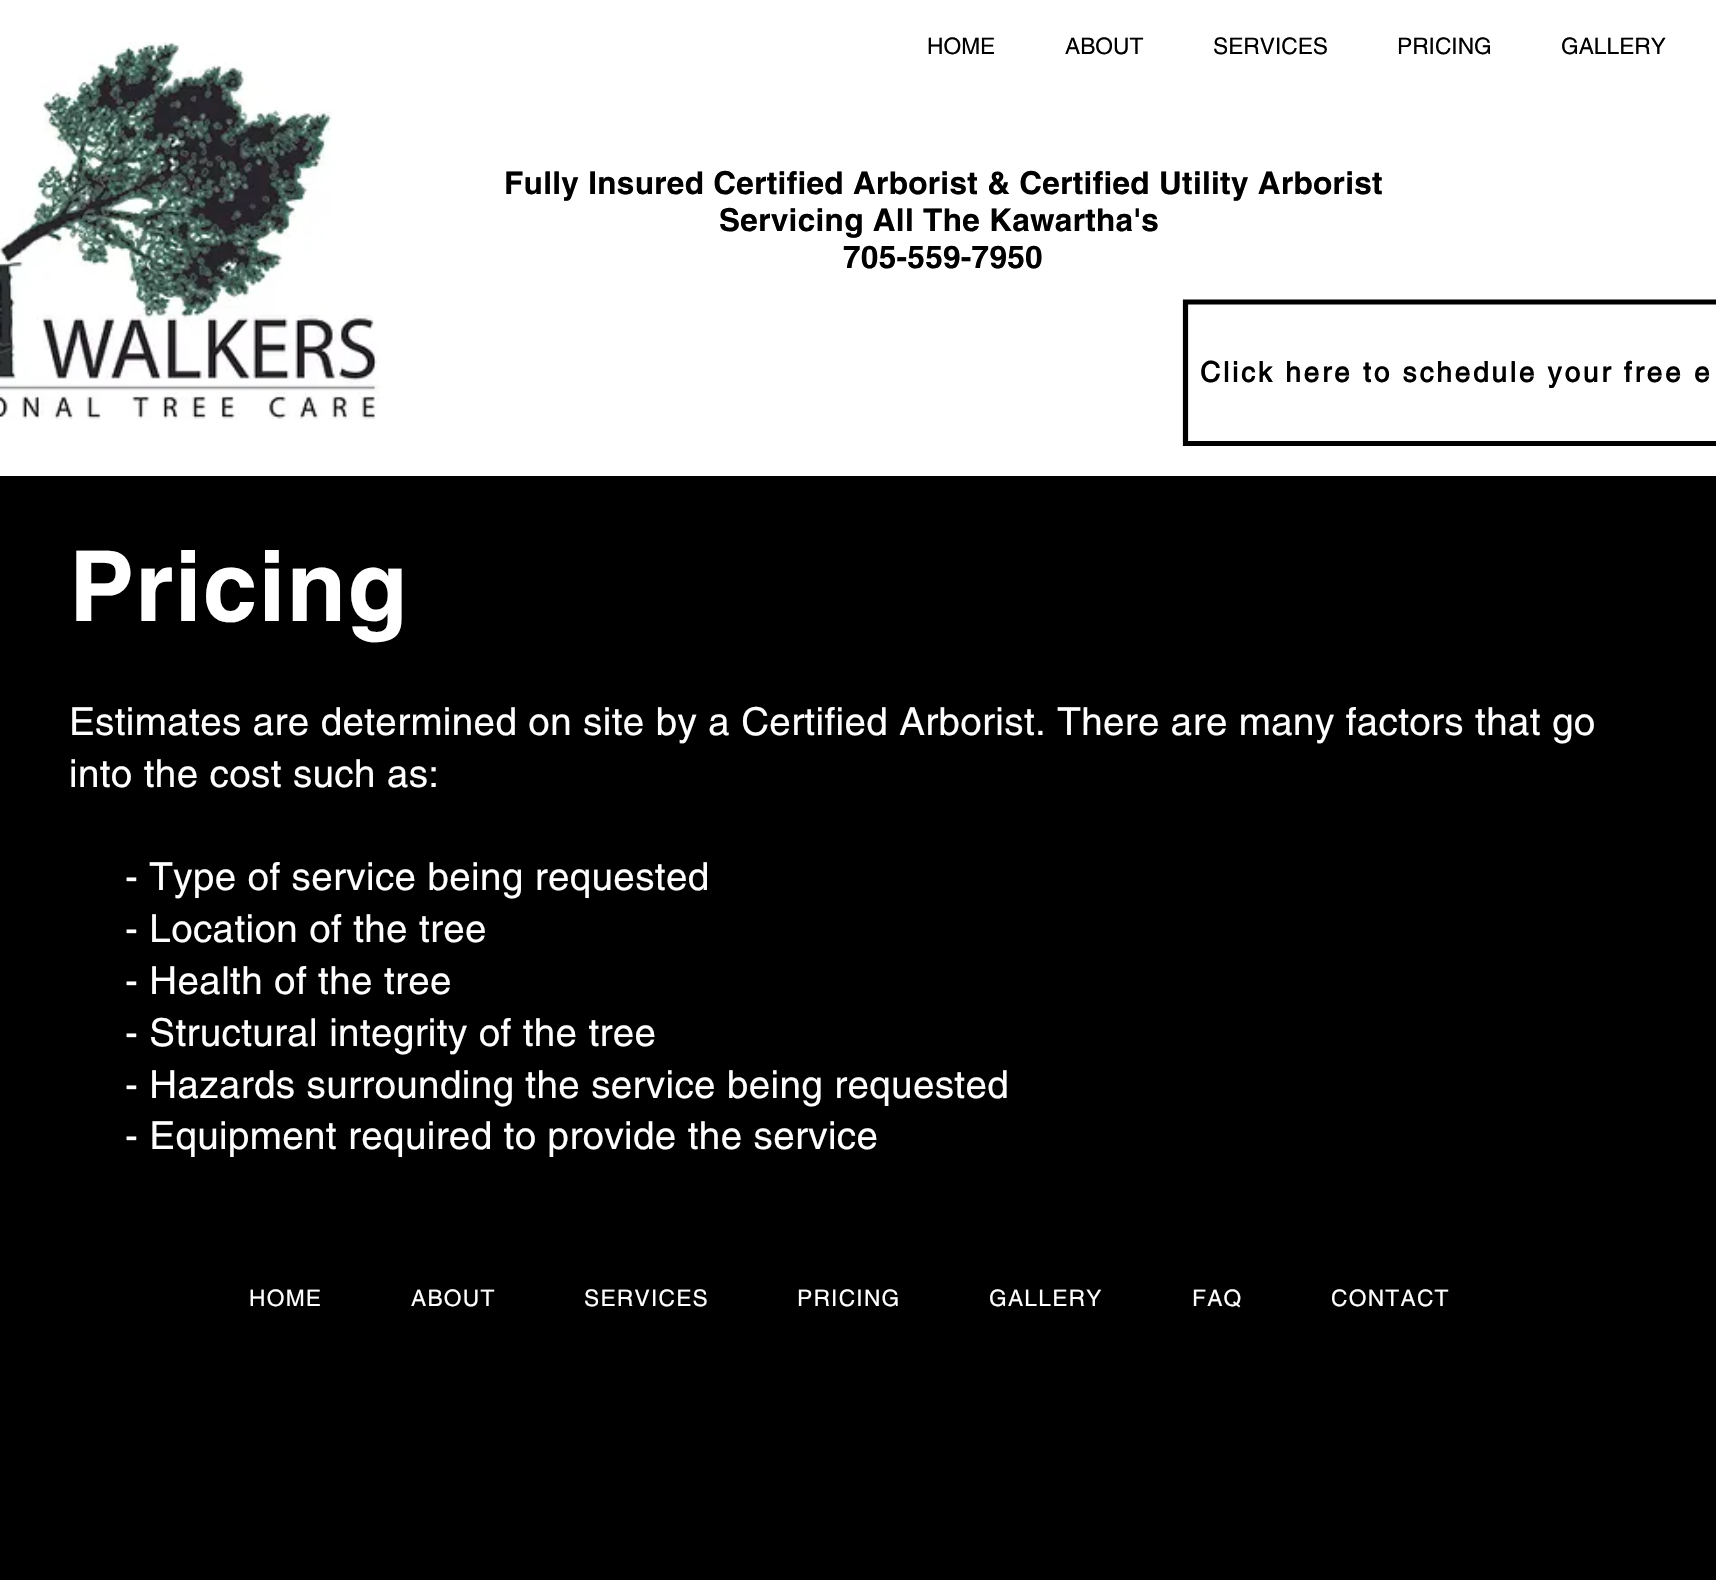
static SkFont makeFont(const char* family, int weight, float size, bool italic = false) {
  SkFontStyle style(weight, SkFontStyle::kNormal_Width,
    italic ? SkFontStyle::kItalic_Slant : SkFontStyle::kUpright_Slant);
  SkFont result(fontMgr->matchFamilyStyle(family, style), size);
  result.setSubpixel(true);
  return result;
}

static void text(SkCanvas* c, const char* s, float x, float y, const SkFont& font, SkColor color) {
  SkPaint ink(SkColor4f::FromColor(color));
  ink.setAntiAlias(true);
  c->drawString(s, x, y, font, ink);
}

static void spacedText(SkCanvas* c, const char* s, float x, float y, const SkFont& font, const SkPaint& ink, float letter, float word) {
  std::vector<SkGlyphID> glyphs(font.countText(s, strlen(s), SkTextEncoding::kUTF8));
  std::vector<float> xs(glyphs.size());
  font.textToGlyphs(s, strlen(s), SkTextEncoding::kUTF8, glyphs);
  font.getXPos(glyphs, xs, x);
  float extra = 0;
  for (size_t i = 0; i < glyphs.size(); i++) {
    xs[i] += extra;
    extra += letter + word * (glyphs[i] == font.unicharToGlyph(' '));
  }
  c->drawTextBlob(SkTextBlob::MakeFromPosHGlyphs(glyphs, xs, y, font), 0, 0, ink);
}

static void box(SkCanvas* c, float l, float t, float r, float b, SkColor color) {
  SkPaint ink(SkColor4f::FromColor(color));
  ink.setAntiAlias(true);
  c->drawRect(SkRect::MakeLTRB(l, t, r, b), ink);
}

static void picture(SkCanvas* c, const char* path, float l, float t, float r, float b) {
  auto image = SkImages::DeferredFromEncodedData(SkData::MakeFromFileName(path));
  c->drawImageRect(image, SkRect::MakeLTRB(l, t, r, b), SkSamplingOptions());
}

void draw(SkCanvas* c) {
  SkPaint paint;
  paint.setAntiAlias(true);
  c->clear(0xff000000);
  box(c, 0, 0, 1716, 476, 0xffffffff);
  picture(c, "img_01.png", 0, 42, 380, 420);
  SkFont face1 = makeFont("helvetica", 400, 22.75f);
  text(c, "HOME", 927, 54, face1, 0xff000000);
  text(c, "ABOUT", 1065, 54, face1, 0xff000000);
  text(c, "SERVICES", 1213, 54, face1, 0xff000000);
  text(c, "PRICING", 1397, 54, face1, 0xff000000);
  text(c, "GALLERY", 1561, 54, face1, 0xff000000);
  SkFont face2 = makeFont("helvetica", 700, 31.5f);
  paint.setColor(0xff000000);
  spacedText(c, "Fully Insured Certified Arborist & Certified Utility Arborist", 504, 194, face2, paint, 0.32f, 0);
  spacedText(c, "Servicing All The Kawartha's", 719, 231, face2, paint, 0.32f, 0);
  spacedText(c, "705-559-7950", 843, 268, face2, paint, 0.32f, 0);
  paint.setStyle(SkPaint::kStroke_Style);
  paint.setStrokeWidth(5.2f);
  c->drawPath(SkPathBuilder().moveTo(1185.5f, 302).lineTo(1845.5f, 302).lineTo(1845.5f, 443.5f).lineTo(1185.5f, 443.5f).close().detach(), paint);
  SkFont face3 = makeFont("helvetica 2", 700, 28);
  paint.setStyle(SkPaint::kFill_Style);
  spacedText(c, "Click here to schedule your free e", 1200, 382, face3, paint, 2.8f, 0);
  SkFont face4 = makeFont("helvetica", 700, 98);
  paint.setColor(0xffffffff);
  spacedText(c, "Pricing", 69, 621, face4, paint, 1, 0);
  SkFont face5 = makeFont("helvetica", 400, 38.5f);
  spacedText(c, "Estimates are determined on site by a Certified Arborist. There are many factors that go", 69, 735, face5, paint, 0.4f, 0);
  spacedText(c, "into the cost such as:", 69, 787, face5, paint, 0.4f, 0);
  spacedText(c, "- Type of service being requested", 125, 890, face5, paint, 0.4f, 0);
  spacedText(c, "- Location of the tree", 125, 942, face5, paint, 0.4f, 0);
  spacedText(c, "- Health of the tree", 125, 994, face5, paint, 0.4f, 0);
  spacedText(c, "- Structural integrity of the tree", 125, 1046, face5, paint, 0.4f, 0);
  spacedText(c, "- Hazards surrounding the service being requested", 125, 1098, face5, paint, 0.4f, 0);
  spacedText(c, "- Equipment required to provide the service", 125, 1149, face5, paint, 0.4f, 0);
  spacedText(c, "HOME", 249, 1306, face1, paint, 1.25f, 0);
  spacedText(c, "ABOUT", 411, 1306, face1, paint, 1.25f, 0);
  spacedText(c, "SERVICES", 584, 1306, face1, paint, 1.25f, 0);
  spacedText(c, "PRICING", 797, 1306, face1, paint, 1.25f, 0);
  spacedText(c, "GALLERY", 989, 1306, face1, paint, 1.25f, 0);
  spacedText(c, "FAQ", 1192, 1306, face1, paint, 1.25f, 0);
  spacedText(c, "CONTACT", 1331, 1306, face1, paint, 1.25f, 0);
}
